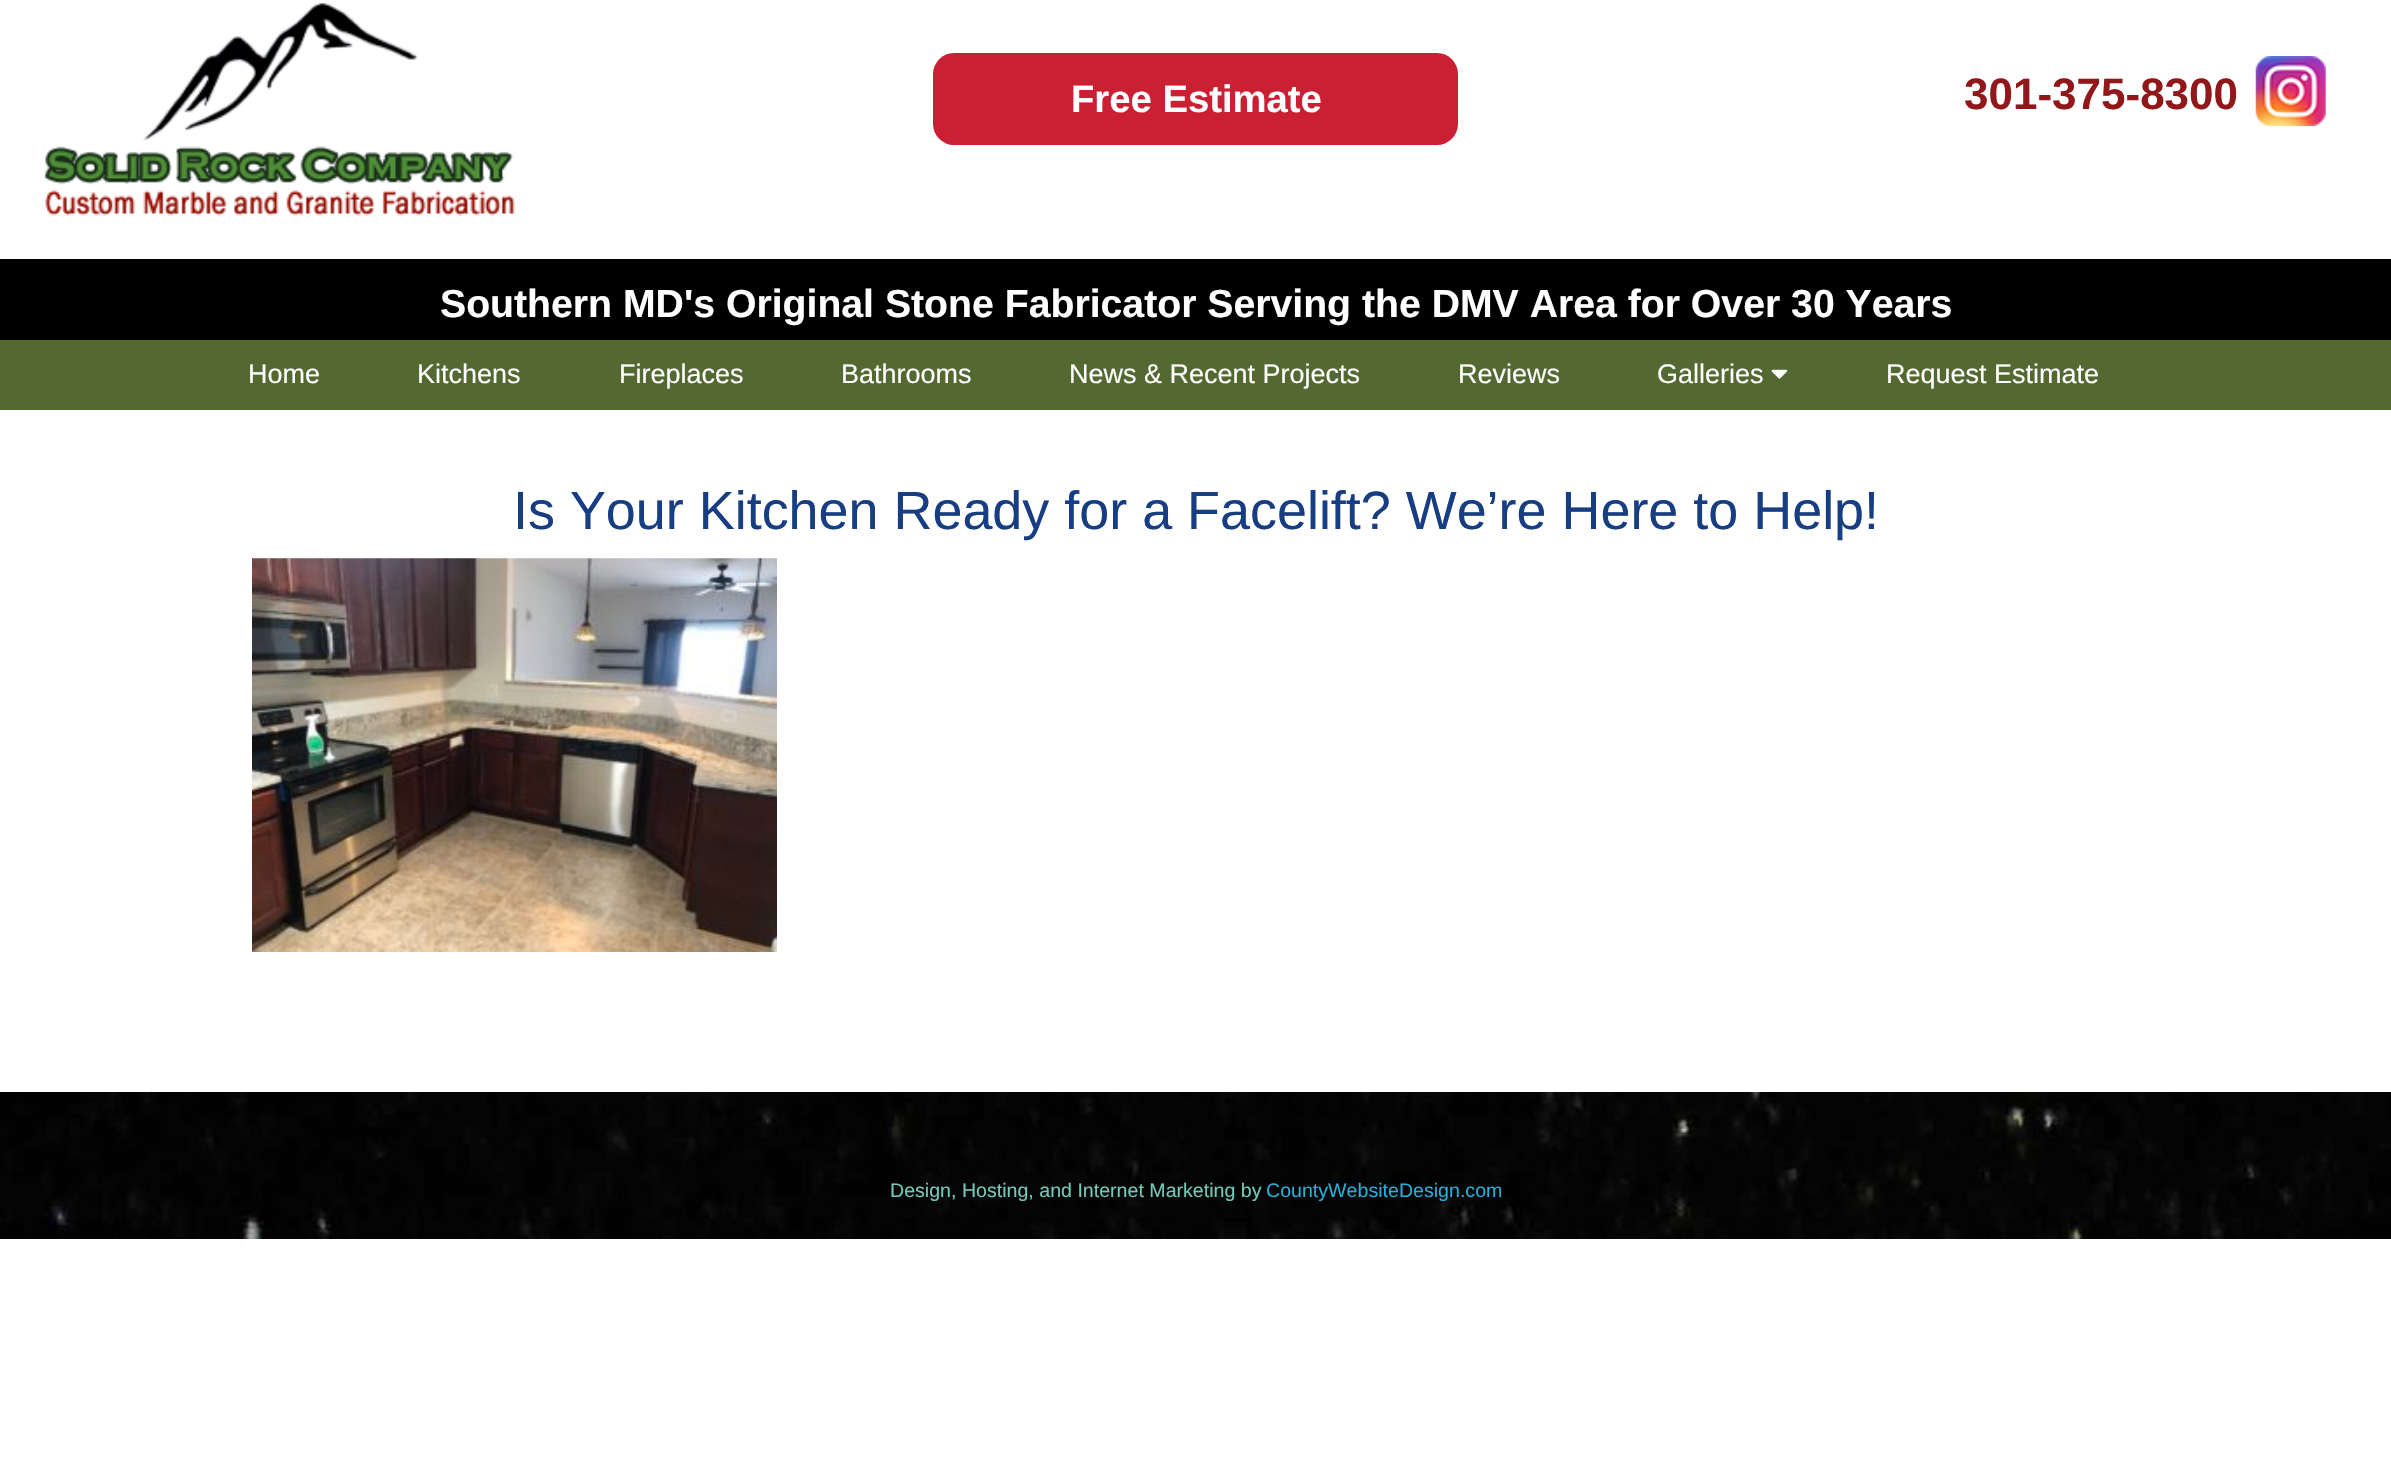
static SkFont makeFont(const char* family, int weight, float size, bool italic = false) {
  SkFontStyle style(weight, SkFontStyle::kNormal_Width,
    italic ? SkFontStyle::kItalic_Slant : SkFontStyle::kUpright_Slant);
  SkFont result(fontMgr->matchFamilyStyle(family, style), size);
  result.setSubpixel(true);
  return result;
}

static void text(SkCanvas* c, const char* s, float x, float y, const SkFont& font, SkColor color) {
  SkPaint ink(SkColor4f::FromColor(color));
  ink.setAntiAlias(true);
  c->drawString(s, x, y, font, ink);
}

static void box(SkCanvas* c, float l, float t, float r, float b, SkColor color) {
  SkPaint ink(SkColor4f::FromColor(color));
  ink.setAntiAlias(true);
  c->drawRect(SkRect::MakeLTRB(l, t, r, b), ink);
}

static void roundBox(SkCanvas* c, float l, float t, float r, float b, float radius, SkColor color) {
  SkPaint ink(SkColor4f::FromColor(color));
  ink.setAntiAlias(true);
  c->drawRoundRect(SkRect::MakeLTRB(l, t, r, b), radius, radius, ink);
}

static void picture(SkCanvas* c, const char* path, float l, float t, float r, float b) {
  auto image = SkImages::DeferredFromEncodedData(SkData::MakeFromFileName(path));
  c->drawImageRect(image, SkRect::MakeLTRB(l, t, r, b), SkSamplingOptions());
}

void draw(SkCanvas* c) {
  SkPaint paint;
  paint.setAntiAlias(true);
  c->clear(0xffffffff);
  picture(c, "img_01.png", 43, 3, 515, 216);
  roundBox(c, 933, 53, 1458, 145, 21, 0xffcb1f33);
  SkFont face1 = makeFont("Liberation Sans", 700, 38.25f);
  text(c, "Free Estimate", 1071, 112, face1, 0xffffffff);
  SkFont face2 = makeFont("Liberation Sans", 700, 44);
  text(c, "301-375-8300", 1964, 109, face2, 0xff91171a);
  picture(c, "img_02.png", 2255, 56, 2326, 126);
  box(c, 0, 259, 2391, 340, 0xff000000);
  SkFont face3 = makeFont("Liberation Sans", 700, 39.2f);
  text(c, "Southern MD's Original Stone Fabricator Serving the DMV Area for Over 30 Years", 440, 317, face3, 0xffffffff);
  box(c, 0, 340, 2391, 410, 0xff546832);
  SkFont face4 = makeFont("Liberation Sans", 400, 27);
  text(c, "Home", 248, 383, face4, 0xffffffff);
  text(c, "Kitchens", 417, 383, face4, 0xffffffff);
  text(c, "Fireplaces", 619, 383, face4, 0xffffffff);
  text(c, "Bathrooms", 841, 383, face4, 0xffffffff);
  text(c, "News & Recent Projects", 1069, 383, face4, 0xffffffff);
  text(c, "Reviews", 1458, 383, face4, 0xffffffff);
  text(c, "Galleries", 1657, 383, face4, 0xffffffff);
  picture(c, "img_03.png", 1771, 369, 1788, 379);
  text(c, "Request Estimate", 1886, 383, face4, 0xffffffff);
  SkFont face5 = makeFont("Liberation Sans", 400, 53.9f);
  text(c, "Is Your Kitchen Ready for a Facelift? We’re Here to Help!", 513, 529, face5, 0xff173d82);
  picture(c, "img_04.png", 252, 558, 777, 952);
  picture(c, "img_05.png", 0, 1092, 2391, 1239);
  SkFont face6 = makeFont("Liberation Sans", 400, 19.6f);
  text(c, "Design, Hosting, and Internet Marketing by", 890, 1197, face6, 0xff72c9b8);
  text(c, "CountyWebsiteDesign.com", 1266, 1197, face6, 0xff29add9);
}
